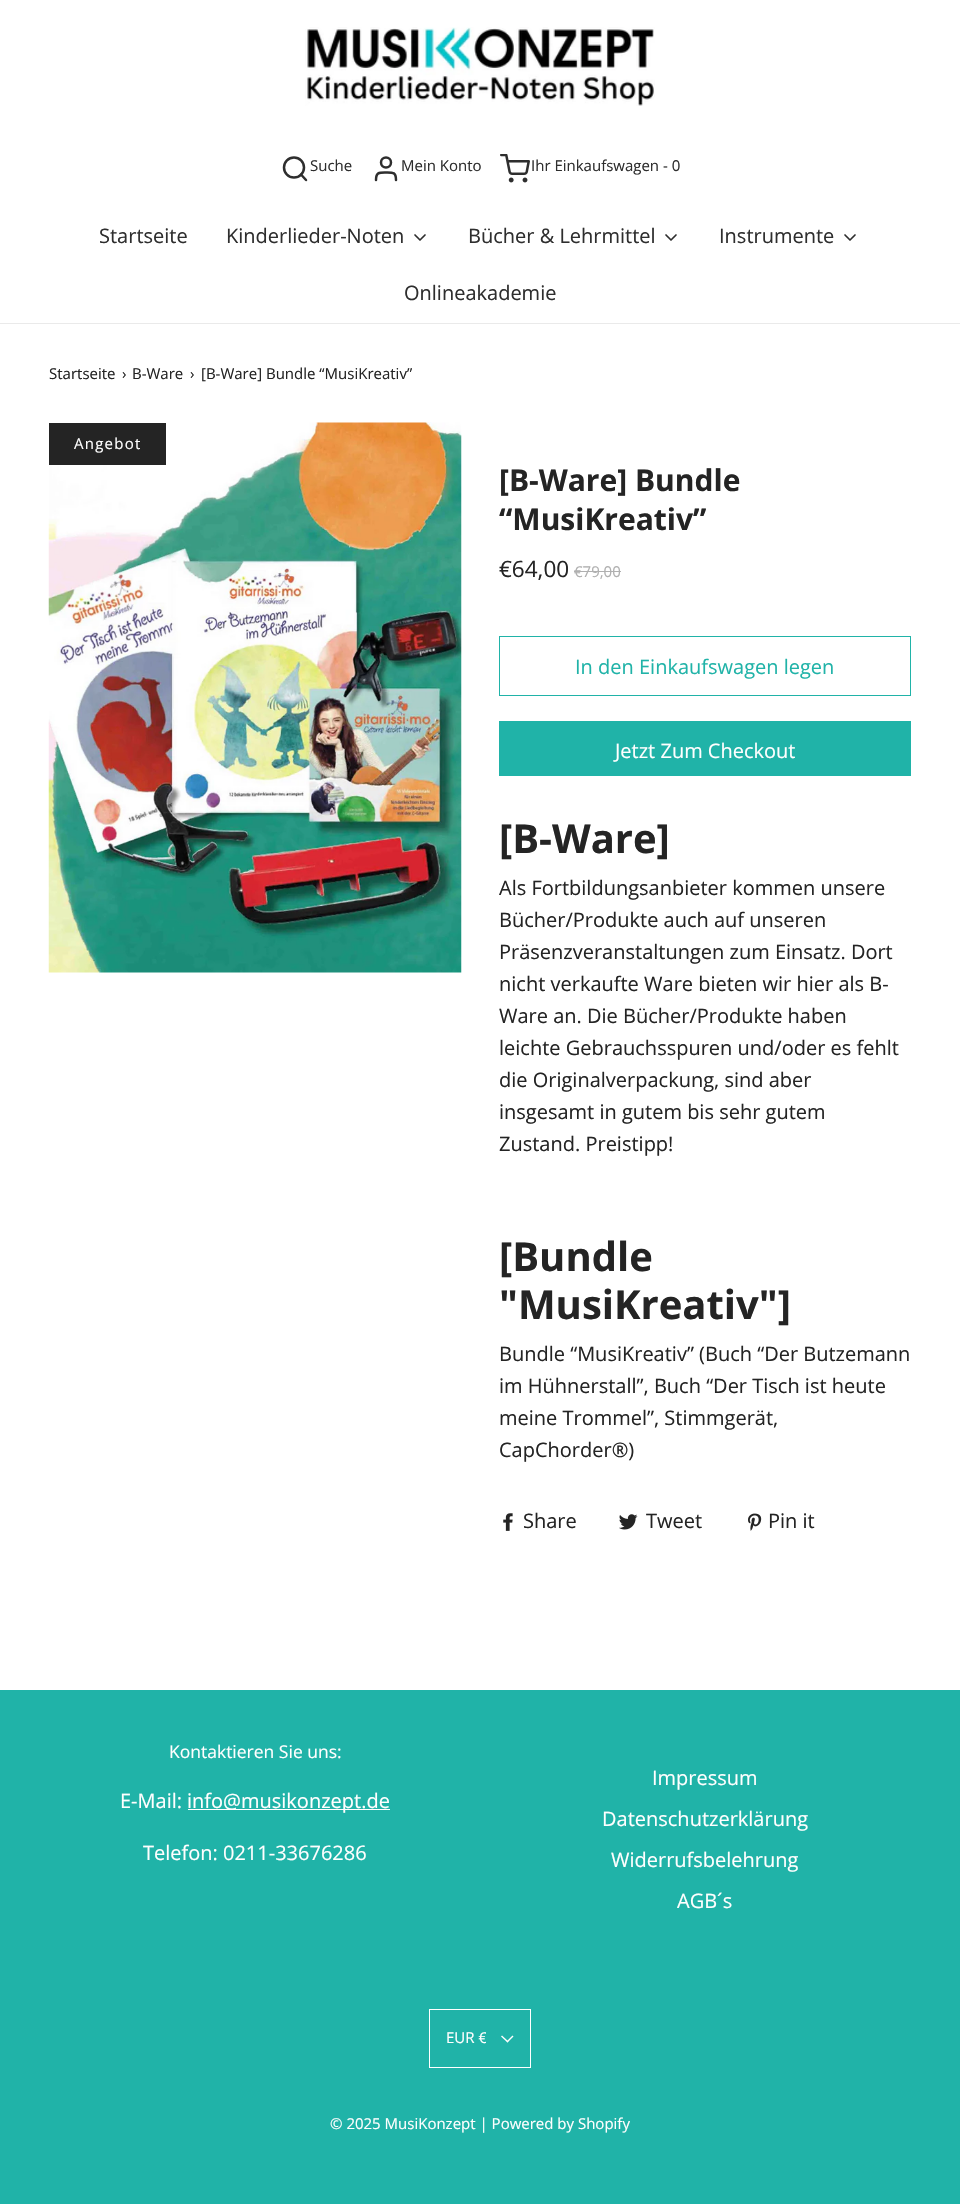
static SkFont makeFont(const char* family, int weight, float size, bool italic = false) {
  SkFontStyle style(weight, SkFontStyle::kNormal_Width,
    italic ? SkFontStyle::kItalic_Slant : SkFontStyle::kUpright_Slant);
  SkFont result(fontMgr->matchFamilyStyle(family, style), size);
  result.setSubpixel(true);
  return result;
}

static void text(SkCanvas* c, const char* s, float x, float y, const SkFont& font, SkColor color) {
  SkPaint ink(SkColor4f::FromColor(color));
  ink.setAntiAlias(true);
  c->drawString(s, x, y, font, ink);
}

static void spacedText(SkCanvas* c, const char* s, float x, float y, const SkFont& font, const SkPaint& ink, float letter, float word) {
  std::vector<SkGlyphID> glyphs(font.countText(s, strlen(s), SkTextEncoding::kUTF8));
  std::vector<float> xs(glyphs.size());
  font.textToGlyphs(s, strlen(s), SkTextEncoding::kUTF8, glyphs);
  font.getXPos(glyphs, xs, x);
  float extra = 0;
  for (size_t i = 0; i < glyphs.size(); i++) {
    xs[i] += extra;
    extra += letter + word * (glyphs[i] == font.unicharToGlyph(' '));
  }
  c->drawTextBlob(SkTextBlob::MakeFromPosHGlyphs(glyphs, xs, y, font), 0, 0, ink);
}

static void box(SkCanvas* c, float l, float t, float r, float b, SkColor color) {
  SkPaint ink(SkColor4f::FromColor(color));
  ink.setAntiAlias(true);
  c->drawRect(SkRect::MakeLTRB(l, t, r, b), ink);
}

static void picture(SkCanvas* c, const char* path, float l, float t, float r, float b) {
  auto image = SkImages::DeferredFromEncodedData(SkData::MakeFromFileName(path));
  c->drawImageRect(image, SkRect::MakeLTRB(l, t, r, b), SkSamplingOptions());
}

void draw(SkCanvas* c) {
  SkPaint paint;
  paint.setAntiAlias(true);
  c->clear(0xffffffff);
  box(c, 0, 323, 960, 324, 0xffeaeaea);
  picture(c, "img_01.png", 305, 27, 655, 106);
  paint.setStyle(SkPaint::kStroke_Style);
  paint.setStrokeWidth(2.5f);
  paint.setColor(0xff2e2e2e);
  c->drawCircle(294, 167.5f, 10, paint);
  paint.setStrokeCap(SkPaint::kRound_Cap);
  paint.setStrokeJoin(SkPaint::kRound_Join);
  c->drawPath(SkPathBuilder().moveTo(306, 180).lineTo(301, 174.5f).detach(), paint);
  SkFont face1 = makeFont("Open Sans", 400, 15);
  text(c, "Suche", 310, 171, face1, 0xff2e2e2e);
  c->drawPath(SkPathBuilder().moveTo(396, 180).cubicTo(396, 172, 393, 172.5f, 386, 172.5f).cubicTo(379.5f, 172.5f, 376, 172, 376, 180).detach(), paint);
  paint.setStrokeCap(SkPaint::kButt_Cap);
  paint.setStrokeJoin(SkPaint::kMiter_Join);
  c->drawCircle(386, 162.5f, 5, paint);
  text(c, "Mein Konto", 401, 171, face1, 0xff2e2e2e);
  picture(c, "img_02.png", 500, 154, 530, 183);
  text(c, "Ihr Einkaufswagen - 0", 531, 171, face1, 0xff2e2e2e);
  SkFont face2 = makeFont("Open Sans", 400, 20);
  text(c, "Startseite", 99, 243, face2, 0xff2e2e2e);
  text(c, "Kinderlieder-Noten", 226, 243, face2, 0xff2e2e2e);
  paint.setStrokeWidth(1.7f);
  paint.setStrokeCap(SkPaint::kRound_Cap);
  paint.setStrokeJoin(SkPaint::kRound_Join);
  c->drawPath(SkPathBuilder().moveTo(415, 235).lineTo(420, 240).lineTo(425, 235).detach(), paint);
  text(c, "Bücher & Lehrmittel", 468, 243, face2, 0xff2e2e2e);
  c->drawPath(SkPathBuilder().moveTo(666, 235).lineTo(671, 240).lineTo(676, 235).detach(), paint);
  text(c, "Instrumente", 719, 243, face2, 0xff2e2e2e);
  c->drawPath(SkPathBuilder().moveTo(845, 235).lineTo(850, 240).lineTo(855, 235).detach(), paint);
  text(c, "Onlineakademie", 404, 300, face2, 0xff2e2e2e);
  text(c, "Startseite", 49, 379, face1, 0xff242424);
  text(c, "›", 122, 379, face1, 0xff242424);
  text(c, "B-Ware", 132, 379, face1, 0xff242424);
  text(c, "›", 190, 379, face1, 0xff242424);
  text(c, "[B-Ware] Bundle “MusiKreativ”", 201, 379, face1, 0xff242424);
  picture(c, "img_03.png", 48, 422, 462, 973);
  box(c, 49, 423, 166, 465, 0xff242424);
  paint.setStyle(SkPaint::kFill_Style);
  paint.setColor(0xffffffff);
  spacedText(c, "Angebot", 74, 449, face1, paint, 1.25f, 0);
  SkFont face3 = makeFont("Open Sans", 700, 30);
  text(c, "[B-Ware] Bundle", 499, 491, face3, 0xff242424);
  text(c, "“MusiKreativ”", 499, 530, face3, 0xff242424);
  SkFont face4 = makeFont("Open Sans", 400, 22.5f);
  text(c, "€64,00", 499, 577, face4, 0xff242424);
  text(c, "€79,00", 574, 577, face1, 0xffb0b0b0);
  box(c, 574, 571, 621, 572, 0xffb0b0b0);
  paint.setStyle(SkPaint::kStroke_Style);
  paint.setStrokeWidth(1);
  paint.setStrokeCap(SkPaint::kButt_Cap);
  paint.setStrokeJoin(SkPaint::kMiter_Join);
  paint.setColor(0xff20b3a8);
  c->drawRect(SkRect::MakeLTRB(499.5f, 636.5f, 910.5f, 695.5f), paint);
  text(c, "In den Einkaufswagen legen", 575, 674, face2, 0xff20b3a8);
  box(c, 499, 721, 911, 776, 0xff20b3a8);
  text(c, "Jetzt Zum Checkout", 615, 758, face2, 0xffffffff);
  SkFont face5 = makeFont("Open Sans", 700, 40);
  text(c, "[B-Ware]", 499, 853, face5, 0xff242424);
  text(c, "Als Fortbildungsanbieter kommen unsere", 499, 895, face2, 0xff242424);
  text(c, "Bücher/Produkte auch auf unseren", 499, 927, face2, 0xff242424);
  text(c, "Präsenzveranstaltungen zum Einsatz. Dort", 499, 959, face2, 0xff242424);
  text(c, "nicht verkaufte Ware bieten wir hier als B-", 499, 991, face2, 0xff242424);
  text(c, "Ware an. Die Bücher/Produkte haben", 499, 1023, face2, 0xff242424);
  text(c, "leichte Gebrauchsspuren und/oder es fehlt", 499, 1055, face2, 0xff242424);
  text(c, "die Originalverpackung, sind aber", 499, 1087, face2, 0xff242424);
  text(c, "insgesamt in gutem bis sehr gutem", 499, 1119, face2, 0xff242424);
  text(c, "Zustand. Preistipp!", 499, 1151, face2, 0xff242424);
  text(c, "[Bundle", 499, 1271, face5, 0xff242424);
  text(c, "\"MusiKreativ\"]", 499, 1319, face5, 0xff242424);
  text(c, "Bundle “MusiKreativ” (Buch “Der Butzemann", 499, 1361, face2, 0xff242424);
  text(c, "im Hühnerstall”, Buch “Der Tisch ist heute", 499, 1393, face2, 0xff242424);
  text(c, "meine Trommel”, Stimmgerät,", 499, 1425, face2, 0xff242424);
  text(c, "CapChorder®)", 499, 1457, face2, 0xff242424);
  picture(c, "img_04.png", 503, 1513, 513, 1531);
  text(c, "Share", 523, 1528, face2, 0xff242424);
  picture(c, "img_05.png", 619, 1514, 638, 1530);
  text(c, "Tweet", 646, 1528, face2, 0xff242424);
  picture(c, "img_06.png", 748, 1513, 762, 1531);
  text(c, "Pin it", 768, 1528, face2, 0xff242424);
  box(c, 0, 1690, 960, 2204, 0xff20b3a8);
  SkFont face6 = makeFont("Open Sans", 400, 17.5f);
  text(c, "Kontaktieren Sie uns:", 169, 1758, face6, 0xffffffff);
  text(c, "E-Mail:", 120, 1808, face2, 0xffffffff);
  box(c, 188, 1809, 390, 1810, 0xffffffff);
  text(c, "info@musikonzept.de", 187, 1808, face2, 0xffffffff);
  text(c, "Telefon: 0211-33676286", 143, 1860, face2, 0xffffffff);
  text(c, "Impressum", 652, 1785, face2, 0xffffffff);
  text(c, "Datenschutzerklärung", 602, 1826, face2, 0xffffffff);
  text(c, "Widerrufsbelehrung", 611, 1867, face2, 0xffffffff);
  text(c, "AGB´s", 677, 1908, face2, 0xffffffff);
  paint.setColor(0xffffffff);
  c->drawRect(SkRect::MakeLTRB(429.5f, 2009.5f, 530.5f, 2067.5f), paint);
  c->save();
  c->clipRect(SkRect::MakeLTRB(446, 2026, 486, 2050));
  text(c, "EUR €", 446, 2043, face1, 0xffffffff);
  c->restore();
  paint.setStyle(SkPaint::kFill_Style);
  c->drawPath(SkPathBuilder().moveTo(512.5f, 2035.5f).lineTo(513.5f, 2036.5f).lineTo(507.5f, 2042.5f).lineTo(506.5f, 2041.5f).close().detach(), paint);
  c->drawPath(SkPathBuilder().moveTo(502, 2035.5f).lineTo(508.5f, 2041.5f).lineTo(507.5f, 2042.5f).lineTo(501, 2036.5f).close().detach(), paint);
  text(c, "© 2025 MusiKonzept | Powered by Shopify", 330, 2129, face1, 0xffffffff);
}
